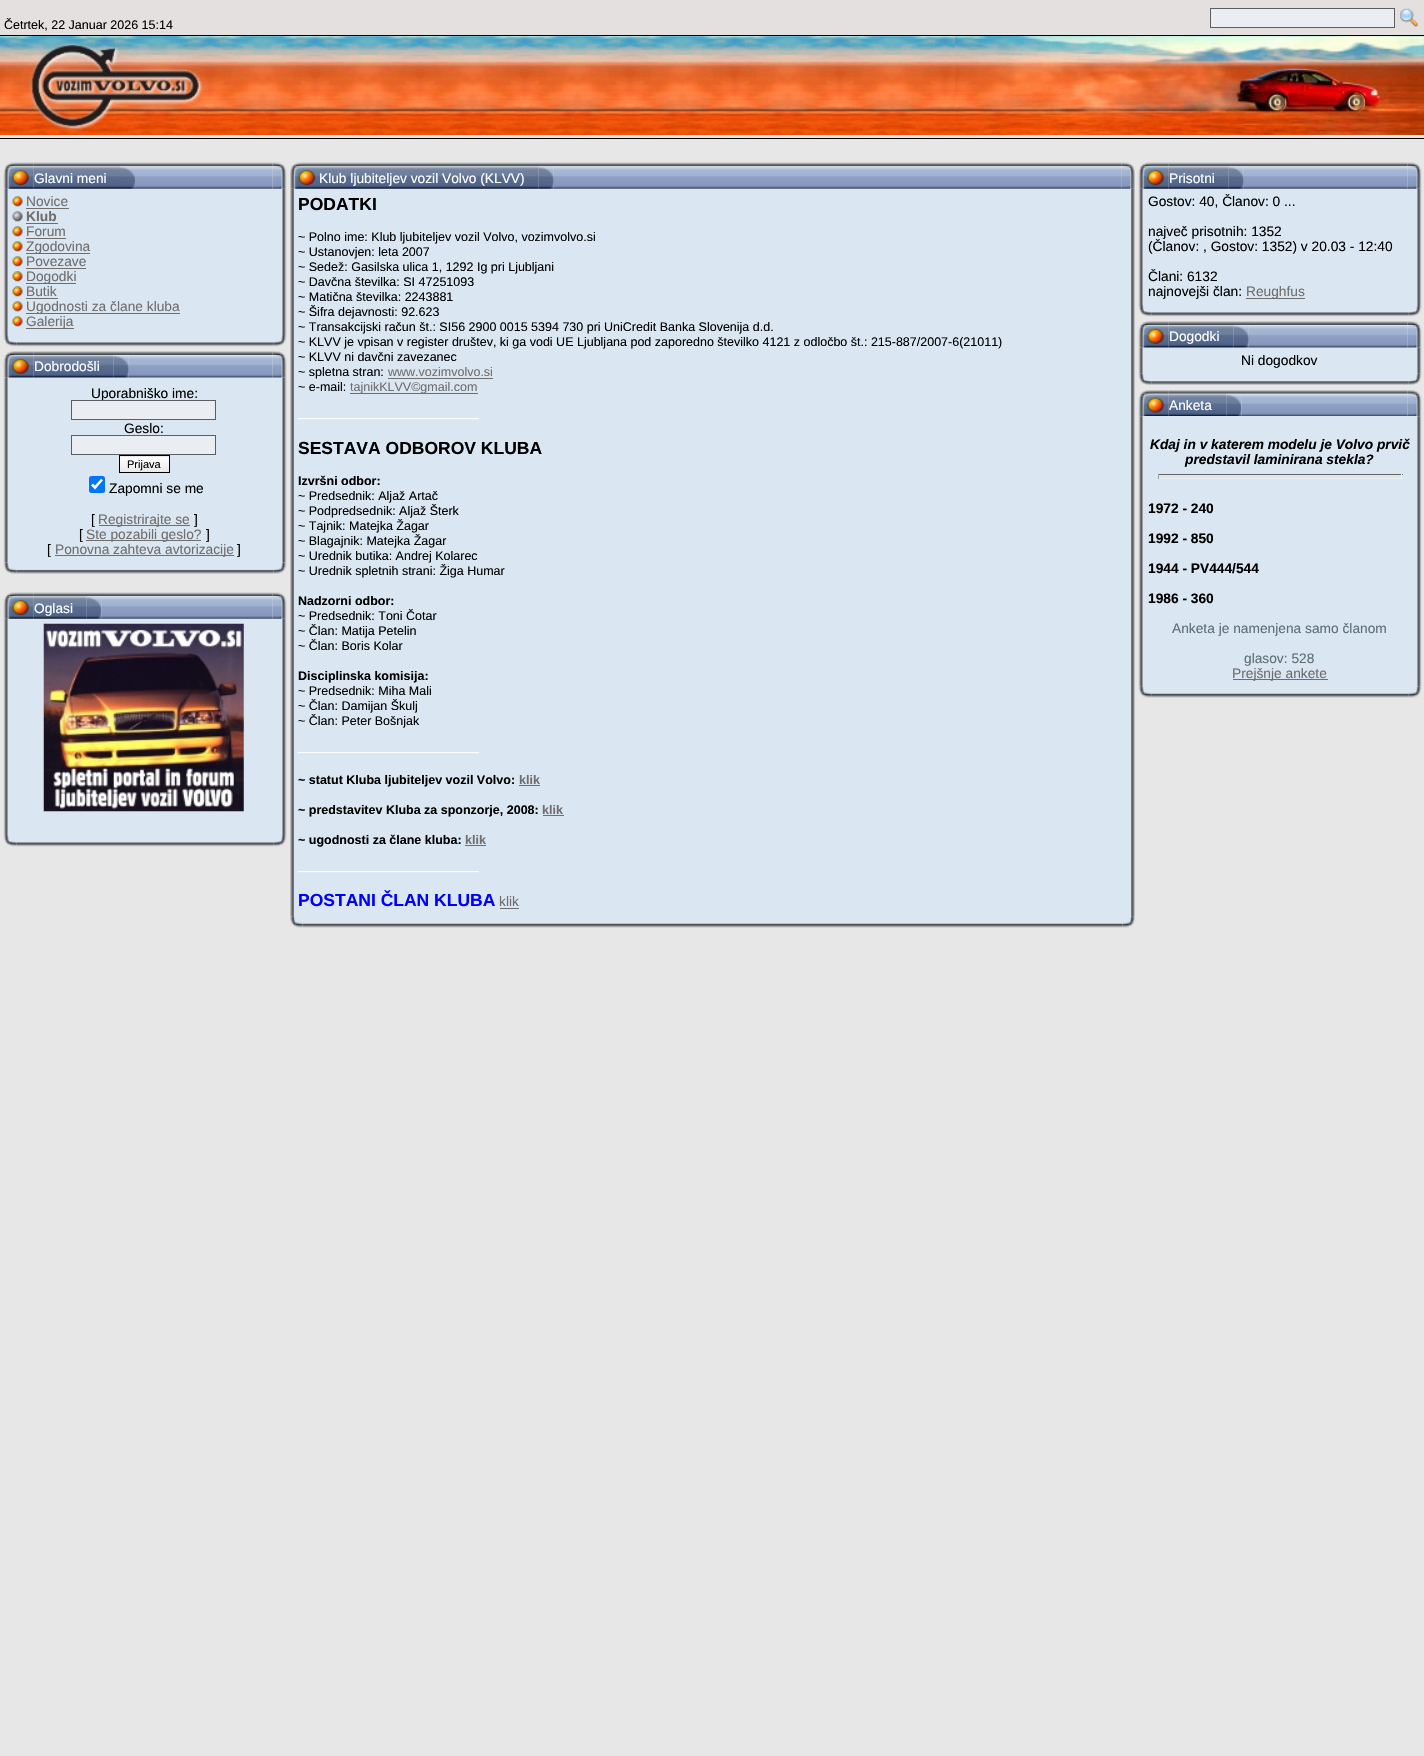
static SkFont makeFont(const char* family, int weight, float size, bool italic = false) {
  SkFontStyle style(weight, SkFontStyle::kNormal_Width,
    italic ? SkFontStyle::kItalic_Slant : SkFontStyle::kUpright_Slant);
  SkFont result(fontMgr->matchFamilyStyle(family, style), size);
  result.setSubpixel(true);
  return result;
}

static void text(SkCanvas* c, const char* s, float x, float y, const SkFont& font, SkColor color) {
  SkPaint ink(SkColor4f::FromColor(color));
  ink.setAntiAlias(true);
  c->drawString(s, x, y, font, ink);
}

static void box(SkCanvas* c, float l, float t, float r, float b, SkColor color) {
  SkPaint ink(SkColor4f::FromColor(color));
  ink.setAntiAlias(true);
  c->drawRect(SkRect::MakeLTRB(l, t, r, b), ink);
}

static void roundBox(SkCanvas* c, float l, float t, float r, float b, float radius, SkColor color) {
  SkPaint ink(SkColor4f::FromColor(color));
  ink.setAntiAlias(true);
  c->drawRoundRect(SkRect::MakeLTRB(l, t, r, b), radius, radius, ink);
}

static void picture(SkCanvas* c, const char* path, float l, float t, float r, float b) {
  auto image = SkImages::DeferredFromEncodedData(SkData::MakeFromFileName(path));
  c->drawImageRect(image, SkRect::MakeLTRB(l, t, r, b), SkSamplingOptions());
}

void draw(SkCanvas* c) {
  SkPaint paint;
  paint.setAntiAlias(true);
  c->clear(0xffe7e7e7);
  box(c, 0, 0, 1424, 35, 0xffe4e0e0);
  box(c, 0, 35, 1424, 36, 0xff000000);
  SkFont face1 = makeFont("Liberation Sans", 400, 12.5f);
  text(c, "Četrtek, 22 Januar 2026 15:14", 4, 29, face1, 0xff000000);
  paint.setColor(0xffeaeef2);
  c->drawRect(SkRect::MakeLTRB(1210.5f, 8.5f, 1394.5f, 27.5f), paint);
  paint.setStyle(SkPaint::kStroke_Style);
  paint.setStrokeWidth(1);
  paint.setColor(0xff5e5d63);
  c->drawRect(SkRect::MakeLTRB(1210.5f, 8.5f, 1394.5f, 27.5f), paint);
  picture(c, "img_01.png", 1400, 8, 1418, 27);
  picture(c, "img_02.png", 0, 36, 1424, 135);
  box(c, 0, 138, 1424, 139, 0xff000000);
  picture(c, "img_03.png", 0, 36, 210, 135);
  picture(c, "img_04.png", 955, 36, 1424, 135);
  picture(c, "img_05.png", 6, 162, 34, 167);
  picture(c, "img_06.png", 33, 162, 273, 167);
  picture(c, "img_07.png", 272, 162, 284, 167);
  picture(c, "img_08.png", 3, 166, 34, 189);
  picture(c, "img_09.png", 33, 166, 120, 189);
  SkFont face2 = makeFont("Liberation Sans", 400, 13.75f);
  text(c, "Glavni meni", 34, 183, face2, 0xffffffff);
  picture(c, "img_10.png", 120, 166, 135, 189);
  picture(c, "img_11.png", 135, 166, 273, 189);
  picture(c, "img_12.png", 272, 166, 287, 189);
  picture(c, "img_13.png", 3, 188, 8, 335);
  box(c, 8, 189, 283, 335, 0xffdae7f3);
  picture(c, "img_14.png", 12, 196, 23, 207);
  text(c, "Novice", 26, 206, face2, 0xff716d6d);
  box(c, 26, 208, 69, 209, 0xff716d6d);
  picture(c, "img_15.png", 12, 211, 23, 222);
  SkFont face3 = makeFont("Liberation Sans", 700, 13.75f);
  text(c, "Klub", 26, 221, face3, 0xff716d6d);
  box(c, 26, 223, 58, 224, 0xff716d6d);
  picture(c, "img_14.png", 12, 226, 23, 237);
  text(c, "Forum", 26, 236, face2, 0xff716d6d);
  box(c, 26, 238, 66, 239, 0xff716d6d);
  picture(c, "img_14.png", 12, 241, 23, 252);
  box(c, 26, 253, 90, 254, 0xff716d6d);
  text(c, "Zgodovina", 26, 251, face2, 0xff716d6d);
  picture(c, "img_16.png", 12, 256, 23, 267);
  text(c, "Povezave", 26, 266, face2, 0xff716d6d);
  box(c, 26, 268, 86, 269, 0xff716d6d);
  picture(c, "img_14.png", 12, 271, 23, 282);
  box(c, 26, 283, 76, 284, 0xff716d6d);
  text(c, "Dogodki", 26, 281, face2, 0xff716d6d);
  picture(c, "img_14.png", 12, 286, 23, 297);
  text(c, "Butik", 26, 296, face2, 0xff716d6d);
  box(c, 26, 298, 58, 299, 0xff716d6d);
  picture(c, "img_14.png", 12, 301, 23, 312);
  box(c, 26, 313, 180, 314, 0xff716d6d);
  text(c, "Ugodnosti za člane kluba", 26, 311, face2, 0xff716d6d);
  picture(c, "img_14.png", 12, 316, 23, 327);
  box(c, 26, 328, 74, 329, 0xff716d6d);
  text(c, "Galerija", 26, 326, face2, 0xff716d6d);
  picture(c, "img_17.png", 282, 188, 287, 335);
  picture(c, "img_18.png", 3, 335, 17, 347);
  picture(c, "img_19.png", 16, 335, 274, 347);
  picture(c, "img_20.png", 273, 335, 287, 347);
  picture(c, "img_21.png", 6, 351, 34, 355);
  picture(c, "img_22.png", 33, 351, 273, 355);
  picture(c, "img_23.png", 272, 351, 284, 355);
  picture(c, "img_24.png", 3, 355, 34, 378);
  picture(c, "img_25.png", 33, 355, 114, 378);
  text(c, "Dobrodošli", 34, 371, face2, 0xffffffff);
  picture(c, "img_26.png", 113, 355, 129, 378);
  picture(c, "img_27.png", 128, 355, 273, 378);
  picture(c, "img_28.png", 272, 355, 287, 378);
  picture(c, "img_29.png", 3, 377, 8, 563);
  box(c, 8, 378, 283, 563, 0xffdae7f3);
  text(c, "Uporabniško ime:", 91, 398, face2, 0xff000000);
  paint.setStyle(SkPaint::kFill_Style);
  paint.setColor(0xffeaeef2);
  c->drawRect(SkRect::MakeLTRB(71.5f, 400.5f, 215.5f, 419.5f), paint);
  paint.setStyle(SkPaint::kStroke_Style);
  paint.setColor(0xff5e5d63);
  c->drawRect(SkRect::MakeLTRB(71.5f, 400.5f, 215.5f, 419.5f), paint);
  text(c, "Geslo:", 124, 433, face2, 0xff000000);
  paint.setStyle(SkPaint::kFill_Style);
  paint.setColor(0xffeaeef2);
  c->drawRect(SkRect::MakeLTRB(71.5f, 435.5f, 215.5f, 454.5f), paint);
  paint.setStyle(SkPaint::kStroke_Style);
  paint.setColor(0xff5e5d63);
  c->drawRect(SkRect::MakeLTRB(71.5f, 435.5f, 215.5f, 454.5f), paint);
  picture(c, "img_30.png", 118, 455, 169, 473);
  paint.setColor(0xff000000);
  c->drawRect(SkRect::MakeLTRB(119.5f, 455.5f, 169.5f, 472.5f), paint);
  SkFont face4 = makeFont("Liberation Sans", 400, 11);
  text(c, "Prijava", 127, 468, face4, 0xff000000);
  roundBox(c, 89, 476, 105, 493, 2.5f, 0xff0075ff);
  paint.setStrokeWidth(2.6f);
  paint.setColor(0xffffffff);
  c->drawPath(SkPathBuilder().moveTo(92, 484.5f).lineTo(95, 487.5f).lineTo(102, 479.5f).detach(), paint);
  text(c, "Zapomni se me", 109, 493, face2, 0xff000000);
  text(c, "[", 91, 524, face2, 0xff000000);
  box(c, 99, 525, 190, 526, 0xff716d6d);
  text(c, "Registrirajte se", 98, 524, face2, 0xff716d6d);
  text(c, "]", 194, 524, face2, 0xff000000);
  text(c, "[", 79, 539, face2, 0xff000000);
  box(c, 86, 540, 201, 541, 0xff716d6d);
  text(c, "Ste pozabili geslo?", 86, 539, face2, 0xff716d6d);
  text(c, "]", 206, 539, face2, 0xff000000);
  text(c, "[", 47, 554, face2, 0xff000000);
  box(c, 55, 555, 234, 556, 0xff716d6d);
  text(c, "Ponovna zahteva avtorizacije", 55, 554, face2, 0xff716d6d);
  text(c, "]", 237, 554, face2, 0xff000000);
  picture(c, "img_31.png", 282, 377, 287, 563);
  picture(c, "img_32.png", 3, 562, 17, 574);
  picture(c, "img_33.png", 16, 563, 274, 574);
  picture(c, "img_34.png", 273, 562, 287, 574);
  picture(c, "img_05.png", 6, 592, 34, 597);
  picture(c, "img_06.png", 33, 592, 273, 597);
  picture(c, "img_07.png", 272, 592, 284, 597);
  picture(c, "img_08.png", 3, 596, 34, 619);
  picture(c, "img_35.png", 33, 596, 87, 619);
  text(c, "Oglasi", 34, 613, face2, 0xffffffff);
  picture(c, "img_36.png", 86, 596, 102, 619);
  picture(c, "img_37.png", 101, 596, 273, 619);
  picture(c, "img_12.png", 272, 596, 287, 619);
  picture(c, "img_38.png", 3, 618, 8, 835);
  box(c, 8, 619, 283, 835, 0xffdae7f3);
  picture(c, "img_39.png", 43, 623, 244, 812);
  picture(c, "img_40.png", 282, 618, 287, 835);
  picture(c, "img_18.png", 3, 835, 17, 847);
  picture(c, "img_19.png", 16, 835, 274, 847);
  picture(c, "img_20.png", 273, 835, 287, 847);
  picture(c, "img_41.png", 292, 162, 320, 167);
  picture(c, "img_42.png", 320, 162, 1122, 167);
  picture(c, "img_43.png", 1121, 162, 1133, 167);
  picture(c, "img_44.png", 290, 166, 320, 189);
  picture(c, "img_45.png", 320, 166, 539, 189);
  text(c, "Klub ljubiteljev vozil Volvo (KLVV)", 319, 183, face2, 0xffffffff);
  picture(c, "img_46.png", 538, 166, 554, 189);
  picture(c, "img_47.png", 553, 166, 1122, 189);
  picture(c, "img_48.png", 1121, 166, 1135, 189);
  picture(c, "img_49.png", 290, 188, 294, 917);
  box(c, 294, 189, 1131, 916, 0xffdae7f3);
  SkFont face5 = makeFont("Liberation Sans", 700, 17.5f);
  text(c, "PODATKI", 298, 210, face5, 0xff000000);
  text(c, "~ Polno ime: Klub ljubiteljev vozil Volvo, vozimvolvo.si", 298, 241, face1, 0xff000000);
  text(c, "~ Ustanovjen: leta 2007", 298, 256, face1, 0xff000000);
  text(c, "~ Sedež: Gasilska ulica 1, 1292 Ig pri Ljubljani", 298, 271, face1, 0xff000000);
  text(c, "~ Davčna številka: SI 47251093", 298, 286, face1, 0xff000000);
  text(c, "~ Matična številka: 2243881", 298, 301, face1, 0xff000000);
  text(c, "~ Šifra dejavnosti: 92.623", 298, 316, face1, 0xff000000);
  text(c, "~ Transakcijski račun št.: SI56 2900 0015 5394 730 pri UniCredit Banka Slovenija d.d.", 298, 331, face1, 0xff000000);
  text(c, "~ KLVV je vpisan v register društev, ki ga vodi UE Ljubljana pod zaporedno številko 4121 z odločbo št.: 215-887/2007-6(21011)", 298, 346, face1, 0xff000000);
  text(c, "~ KLVV ni davčni zavezanec", 298, 361, face1, 0xff000000);
  text(c, "~ spletna stran:", 298, 376, face1, 0xff000000);
  text(c, "www.vozimvolvo.si", 388, 376, face1, 0xff716d6d);
  box(c, 388, 378, 493, 379, 0xff716d6d);
  text(c, "~ e-mail:", 298, 391, face1, 0xff000000);
  box(c, 350, 393, 478, 394, 0xff716d6d);
  text(c, "tajnikKLVV©gmail.com", 350, 391, face1, 0xff716d6d);
  SkFont face6 = makeFont("Liberation Sans", 700, 25);
  text(c, "_____________", 298, 416, face6, 0xffffffff);
  text(c, "SESTAVA ODBOROV KLUBA", 298, 454, face5, 0xff000000);
  SkFont face7 = makeFont("Liberation Sans", 700, 12.5f);
  text(c, "Izvršni odbor:", 298, 485, face7, 0xff000000);
  text(c, "~ Predsednik: Aljaž Artač", 298, 500, face1, 0xff000000);
  text(c, "~ Podpredsednik: Aljaž Šterk", 298, 515, face1, 0xff000000);
  text(c, "~ Tajnik: Matejka Žagar", 298, 530, face1, 0xff000000);
  text(c, "~ Blagajnik: Matejka Žagar", 298, 545, face1, 0xff000000);
  text(c, "~ Urednik butika: Andrej Kolarec", 298, 560, face1, 0xff000000);
  text(c, "~ Urednik spletnih strani: Žiga Humar", 298, 575, face1, 0xff000000);
  text(c, "Nadzorni odbor:", 298, 605, face7, 0xff000000);
  text(c, "~ Predsednik: Toni Čotar", 298, 620, face1, 0xff000000);
  text(c, "~ Član: Matija Petelin", 298, 635, face1, 0xff000000);
  text(c, "~ Član: Boris Kolar", 298, 650, face1, 0xff000000);
  text(c, "Disciplinska komisija:", 298, 680, face7, 0xff000000);
  text(c, "~ Predsednik: Miha Mali", 298, 695, face1, 0xff000000);
  text(c, "~ Član: Damijan Škulj", 298, 710, face1, 0xff000000);
  text(c, "~ Član: Peter Bošnjak", 298, 725, face1, 0xff000000);
  text(c, "_____________", 298, 750, face6, 0xffffffff);
  text(c, "~ statut Kluba ljubiteljev vozil Volvo:", 298, 784, face7, 0xff000000);
  text(c, "klik", 519, 784, face7, 0xff716d6d);
  box(c, 519, 785, 540, 786, 0xff716d6d);
  text(c, "~ predstavitev Kluba za sponzorje, 2008:", 298, 814, face7, 0xff000000);
  text(c, "klik", 542, 814, face7, 0xff716d6d);
  box(c, 543, 815, 564, 816, 0xff716d6d);
  text(c, "~ ugodnosti za člane kluba:", 298, 844, face7, 0xff000000);
  text(c, "klik", 465, 844, face7, 0xff716d6d);
  box(c, 465, 845, 486, 846, 0xff716d6d);
  text(c, "_____________", 298, 869, face6, 0xffffffff);
  text(c, "POSTANI ČLAN KLUBA", 298, 906, face5, 0xff0000ff);
  text(c, "klik", 499, 906, face2, 0xff716d6d);
  box(c, 500, 908, 519, 909, 0xff716d6d);
  picture(c, "img_50.png", 1131, 188, 1135, 917);
  picture(c, "img_51.png", 290, 916, 303, 928);
  picture(c, "img_52.png", 302, 916, 1123, 928);
  picture(c, "img_53.png", 1122, 916, 1135, 928);
  picture(c, "img_54.png", 1141, 162, 1169, 167);
  picture(c, "img_06.png", 1168, 162, 1408, 167);
  picture(c, "img_07.png", 1407, 162, 1419, 167);
  picture(c, "img_55.png", 1138, 166, 1169, 189);
  picture(c, "img_56.png", 1168, 166, 1229, 189);
  text(c, "Prisotni", 1169, 183, face2, 0xffffffff);
  picture(c, "img_46.png", 1228, 166, 1244, 189);
  picture(c, "img_57.png", 1243, 166, 1408, 189);
  picture(c, "img_12.png", 1407, 166, 1422, 189);
  picture(c, "img_58.png", 1138, 188, 1143, 305);
  box(c, 1143, 189, 1418, 305, 0xffdae7f3);
  text(c, "Gostov: 40, Članov: 0 ...", 1148, 206, face2, 0xff000000);
  text(c, "največ prisotnih: 1352", 1148, 236, face2, 0xff000000);
  text(c, "(Članov: , Gostov: 1352) v 20.03 - 12:40", 1148, 251, face2, 0xff000000);
  text(c, "Člani: 6132", 1148, 281, face2, 0xff000000);
  text(c, "najnovejši član:", 1148, 296, face2, 0xff000000);
  box(c, 1246, 298, 1305, 299, 0xff716d6d);
  text(c, "Reughfus", 1246, 296, face2, 0xff716d6d);
  picture(c, "img_59.png", 1417, 188, 1422, 305);
  picture(c, "img_60.png", 1138, 305, 1152, 317);
  picture(c, "img_19.png", 1151, 305, 1409, 317);
  picture(c, "img_20.png", 1408, 305, 1422, 317);
  picture(c, "img_61.png", 1141, 321, 1169, 325);
  picture(c, "img_22.png", 1168, 321, 1408, 325);
  picture(c, "img_23.png", 1407, 321, 1419, 325);
  picture(c, "img_62.png", 1138, 325, 1169, 348);
  picture(c, "img_63.png", 1168, 325, 1234, 348);
  text(c, "Dogodki", 1169, 341, face2, 0xffffffff);
  picture(c, "img_64.png", 1233, 325, 1249, 348);
  picture(c, "img_65.png", 1248, 325, 1408, 348);
  picture(c, "img_28.png", 1407, 325, 1422, 348);
  picture(c, "img_66.png", 1138, 347, 1143, 374);
  box(c, 1143, 348, 1418, 374, 0xffdae7f3);
  text(c, "Ni dogodkov", 1241, 365, face2, 0xff000000);
  picture(c, "img_67.png", 1417, 347, 1422, 374);
  picture(c, "img_68.png", 1138, 373, 1152, 385);
  picture(c, "img_69.png", 1151, 374, 1409, 385);
  picture(c, "img_70.png", 1408, 373, 1422, 385);
  picture(c, "img_71.png", 1141, 390, 1169, 394);
  picture(c, "img_72.png", 1168, 390, 1408, 394);
  picture(c, "img_73.png", 1407, 390, 1419, 394);
  picture(c, "img_74.png", 1138, 393, 1169, 417);
  picture(c, "img_75.png", 1168, 393, 1227, 416);
  text(c, "Anketa", 1169, 410, face2, 0xffffffff);
  picture(c, "img_76.png", 1226, 393, 1242, 416);
  picture(c, "img_77.png", 1241, 393, 1408, 416);
  picture(c, "img_78.png", 1407, 393, 1422, 417);
  picture(c, "img_79.png", 1138, 416, 1143, 687);
  box(c, 1143, 416, 1418, 686, 0xffdae7f3);
  SkFont face8 = makeFont("Liberation Sans", 700, 13.75f, true);
  text(c, "Kdaj in v katerem modelu je Volvo prvič", 1150, 449, face8, 0xff000000);
  text(c, "predstavil laminirana stekla?", 1185, 464, face8, 0xff000000);
  box(c, 1158, 474, 1403, 475, 0xff666666);
  box(c, 1401, 474, 1402, 479, 0xffeeeeee);
  box(c, 1158, 478, 1403, 479, 0xffeeeeee);
  box(c, 1158, 474, 1159, 479, 0xff9f9f9f);
  text(c, "1972 - 240", 1148, 513, face3, 0xff000000);
  text(c, "1992 - 850", 1148, 543, face3, 0xff000000);
  text(c, "1944 - PV444/544", 1148, 573, face3, 0xff000000);
  text(c, "1986 - 360", 1148, 603, face3, 0xff000000);
  text(c, "Anketa je namenjena samo članom", 1172, 633, face2, 0xff5d6e75);
  text(c, "glasov: 528", 1244, 663, face2, 0xff5d6e75);
  box(c, 1233, 679, 1328, 680, 0xff716d6d);
  text(c, "Prejšnje ankete", 1232, 678, face2, 0xff716d6d);
  picture(c, "img_80.png", 1417, 416, 1422, 687);
  picture(c, "img_81.png", 1138, 686, 1152, 698);
  picture(c, "img_82.png", 1151, 686, 1409, 698);
  picture(c, "img_83.png", 1408, 686, 1422, 698);
}
